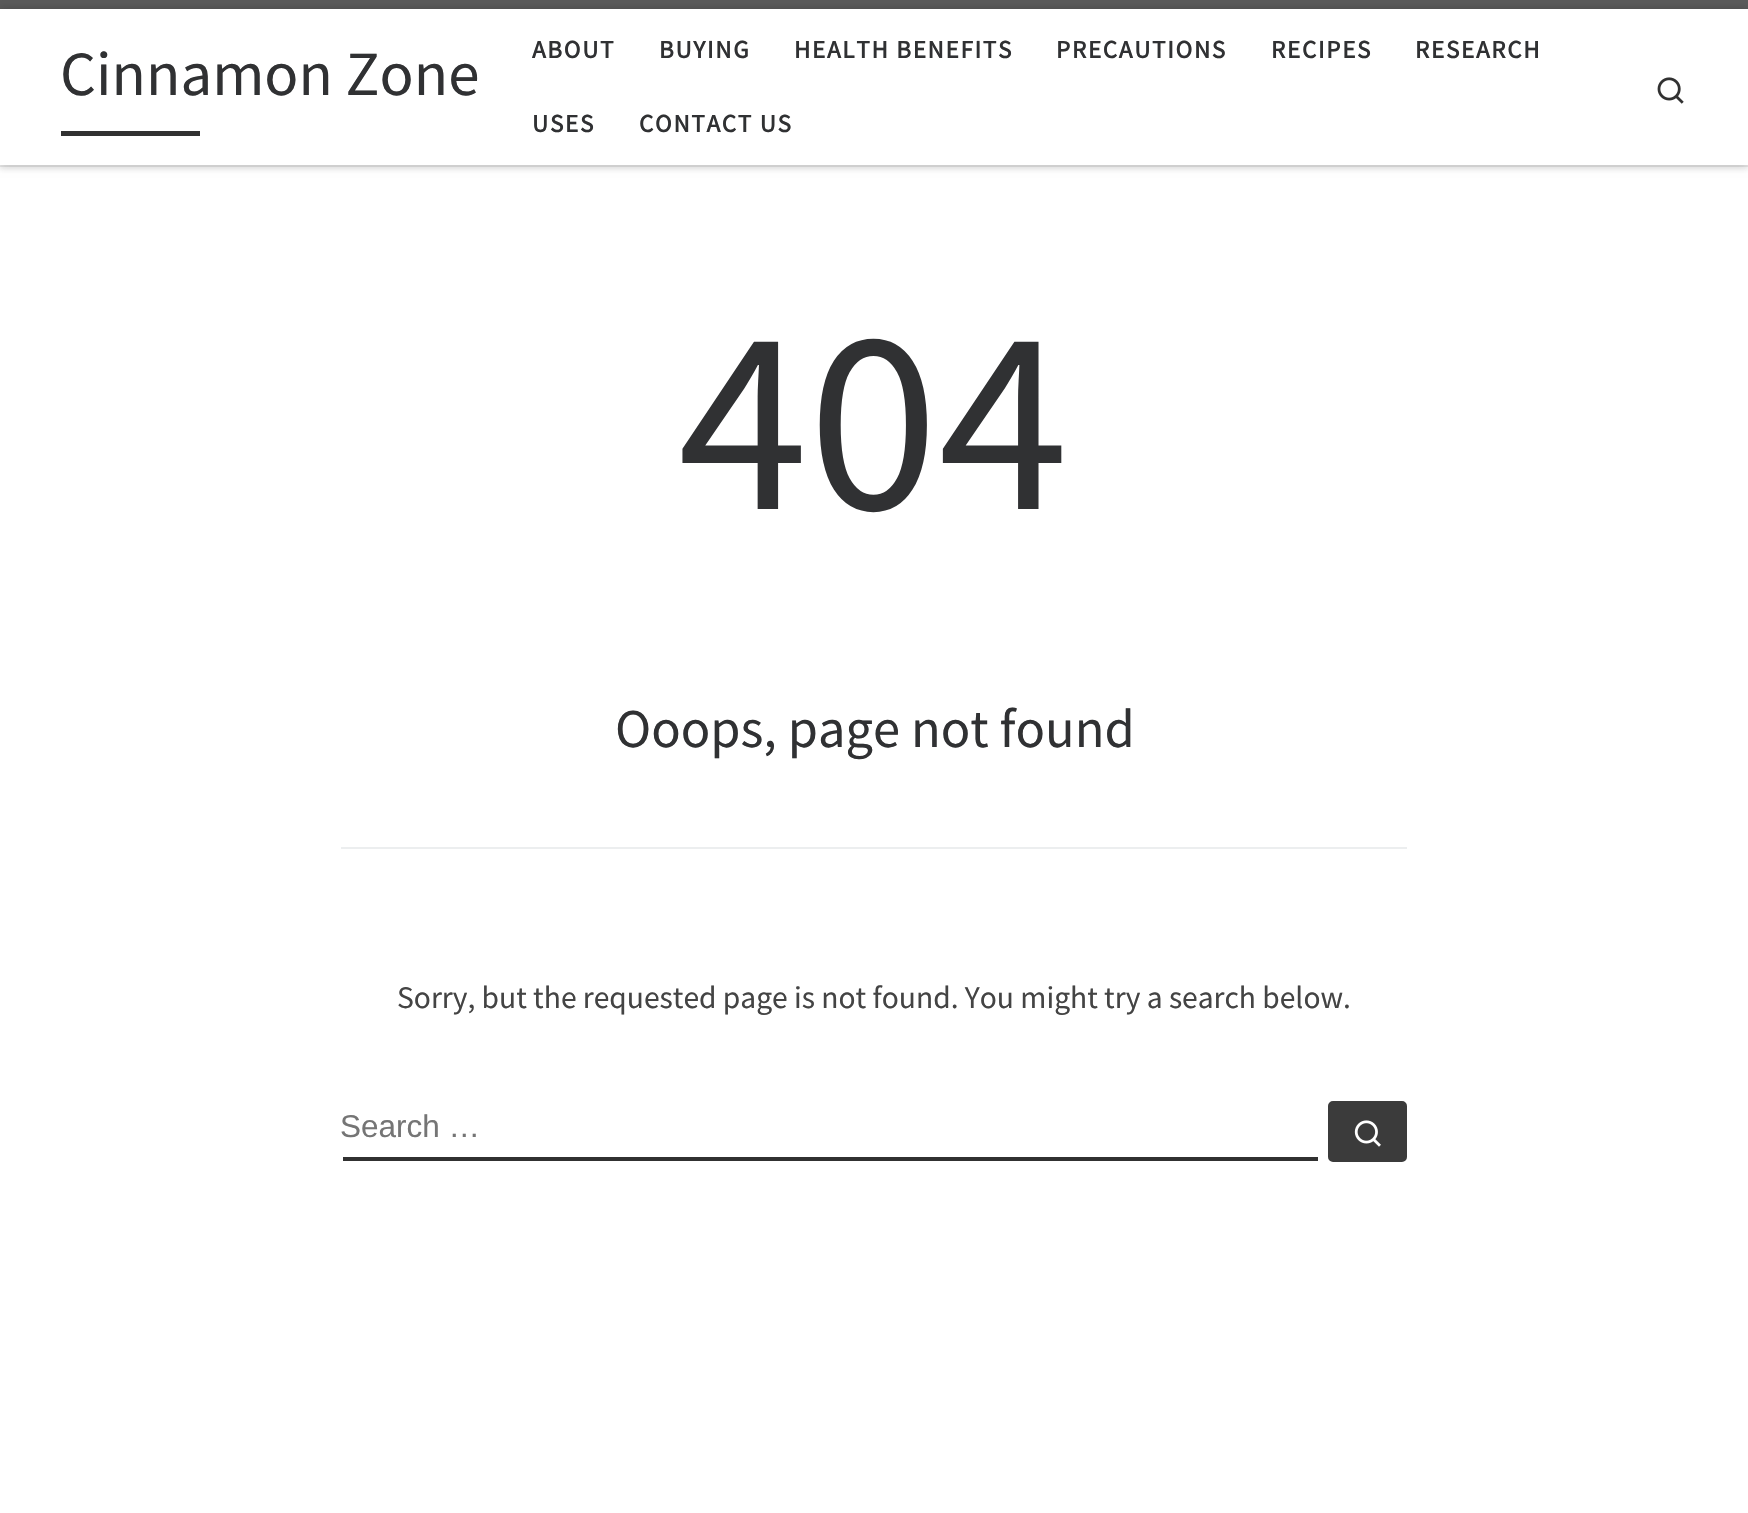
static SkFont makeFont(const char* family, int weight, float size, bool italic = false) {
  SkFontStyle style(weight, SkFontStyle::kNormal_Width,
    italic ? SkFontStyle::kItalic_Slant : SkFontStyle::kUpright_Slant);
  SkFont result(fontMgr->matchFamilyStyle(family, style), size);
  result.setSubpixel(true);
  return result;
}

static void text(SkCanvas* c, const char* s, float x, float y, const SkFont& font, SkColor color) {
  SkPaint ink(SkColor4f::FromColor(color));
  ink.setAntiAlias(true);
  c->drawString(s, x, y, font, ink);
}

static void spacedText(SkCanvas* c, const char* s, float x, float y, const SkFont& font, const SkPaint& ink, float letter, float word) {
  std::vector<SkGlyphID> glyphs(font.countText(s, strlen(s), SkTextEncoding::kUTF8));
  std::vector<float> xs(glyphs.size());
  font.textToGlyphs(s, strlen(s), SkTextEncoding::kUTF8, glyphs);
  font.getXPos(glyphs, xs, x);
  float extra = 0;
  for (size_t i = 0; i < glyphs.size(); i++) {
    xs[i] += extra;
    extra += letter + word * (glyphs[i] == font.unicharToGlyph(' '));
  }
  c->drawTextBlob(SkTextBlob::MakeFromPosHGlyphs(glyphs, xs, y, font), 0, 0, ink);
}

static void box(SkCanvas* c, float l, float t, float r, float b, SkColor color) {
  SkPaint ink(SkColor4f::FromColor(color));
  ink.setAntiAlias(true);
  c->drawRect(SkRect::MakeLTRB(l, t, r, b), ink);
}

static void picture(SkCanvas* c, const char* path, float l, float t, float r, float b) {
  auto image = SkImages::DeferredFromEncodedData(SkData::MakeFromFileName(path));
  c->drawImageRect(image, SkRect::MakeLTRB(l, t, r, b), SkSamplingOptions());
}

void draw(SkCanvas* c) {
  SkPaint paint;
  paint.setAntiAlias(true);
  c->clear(0xffffffff);
  paint.setColor(0x14666666);
  paint.setMaskFilter(SkMaskFilter::MakeBlur(kNormal_SkBlurStyle, 2));
  c->drawRect(SkRect::MakeLTRB(0, 4, 1748, 170), paint);
  paint.setMaskFilter(nullptr);
  box(c, 0, 0, 1748, 9, 0xff5a5a5a);
  box(c, 0, 165, 1748, 167, 0x17313131);
  box(c, 0, 165, 1748, 166, 0x26ffffff);
  paint.setColor(0x33000000);
  paint.setMaskFilter(SkMaskFilter::MakeBlur(kNormal_SkBlurStyle, 4.5f));
  c->drawRect(SkRect::MakeLTRB(0, 9, 1748, 165), paint);
  paint.setMaskFilter(nullptr);
  box(c, 0, 9, 1748, 165, 0xffffffff);
  SkFont face1 = makeFont("Source Sans Pro", 400, 63);
  text(c, "Cinnamon Zone", 60, 95, face1, 0xff303133);
  box(c, 61, 131, 200, 136, 0xff313131);
  SkFont face2 = makeFont("Source Sans Pro", 700, 25);
  paint.setColor(0xff303133);
  spacedText(c, "ABOUT", 532, 58, face2, paint, 1.75f, 0);
  spacedText(c, "BUYING", 659, 58, face2, paint, 1.75f, 0);
  spacedText(c, "HEALTH BENEFITS", 794, 58, face2, paint, 1.75f, 0);
  spacedText(c, "PRECAUTIONS", 1056, 58, face2, paint, 1.75f, 0);
  spacedText(c, "RECIPES", 1271, 58, face2, paint, 1.75f, 0);
  spacedText(c, "RESEARCH", 1415, 58, face2, paint, 1.75f, 0);
  spacedText(c, "USES", 532, 132, face2, paint, 1.75f, 0);
  spacedText(c, "CONTACT US", 639, 132, face2, paint, 1.75f, 0);
  picture(c, "img_01.png", 1657, 77, 1684, 104);
  SkFont face3 = makeFont("Source Sans Pro", 400, 262);
  text(c, "404", 678, 509, face3, 0xff303133);
  SkFont face4 = makeFont("Source Sans Pro", 400, 54.5f);
  text(c, "Ooops, page not found", 615, 747, face4, 0xff303133);
  box(c, 341, 847, 1407, 849, 0xffeceeef);
  SkFont face5 = makeFont("Source Sans Pro", 400, 31.5f);
  text(c, "Sorry, but the requested page is not found. You might try a search below.", 397, 1008, face5, 0xff444444);
  box(c, 343, 1157, 1318, 1161, 0xff313131);
  SkFont face6 = makeFont("Liberation Sans", 400, 31.5f);
  text(c, "Search …", 340, 1137, face6, 0xff757575);
  paint.setColor(0xff3b3b3b);
  c->drawRoundRect(SkRect::MakeLTRB(1330, 1103, 1405, 1160), 3, 3, paint);
  paint.setStyle(SkPaint::kStroke_Style);
  paint.setStrokeWidth(4);
  c->drawRoundRect(SkRect::MakeLTRB(1330, 1103, 1405, 1160), 3, 3, paint);
  picture(c, "img_02.png", 1354, 1120, 1381, 1147);
}
